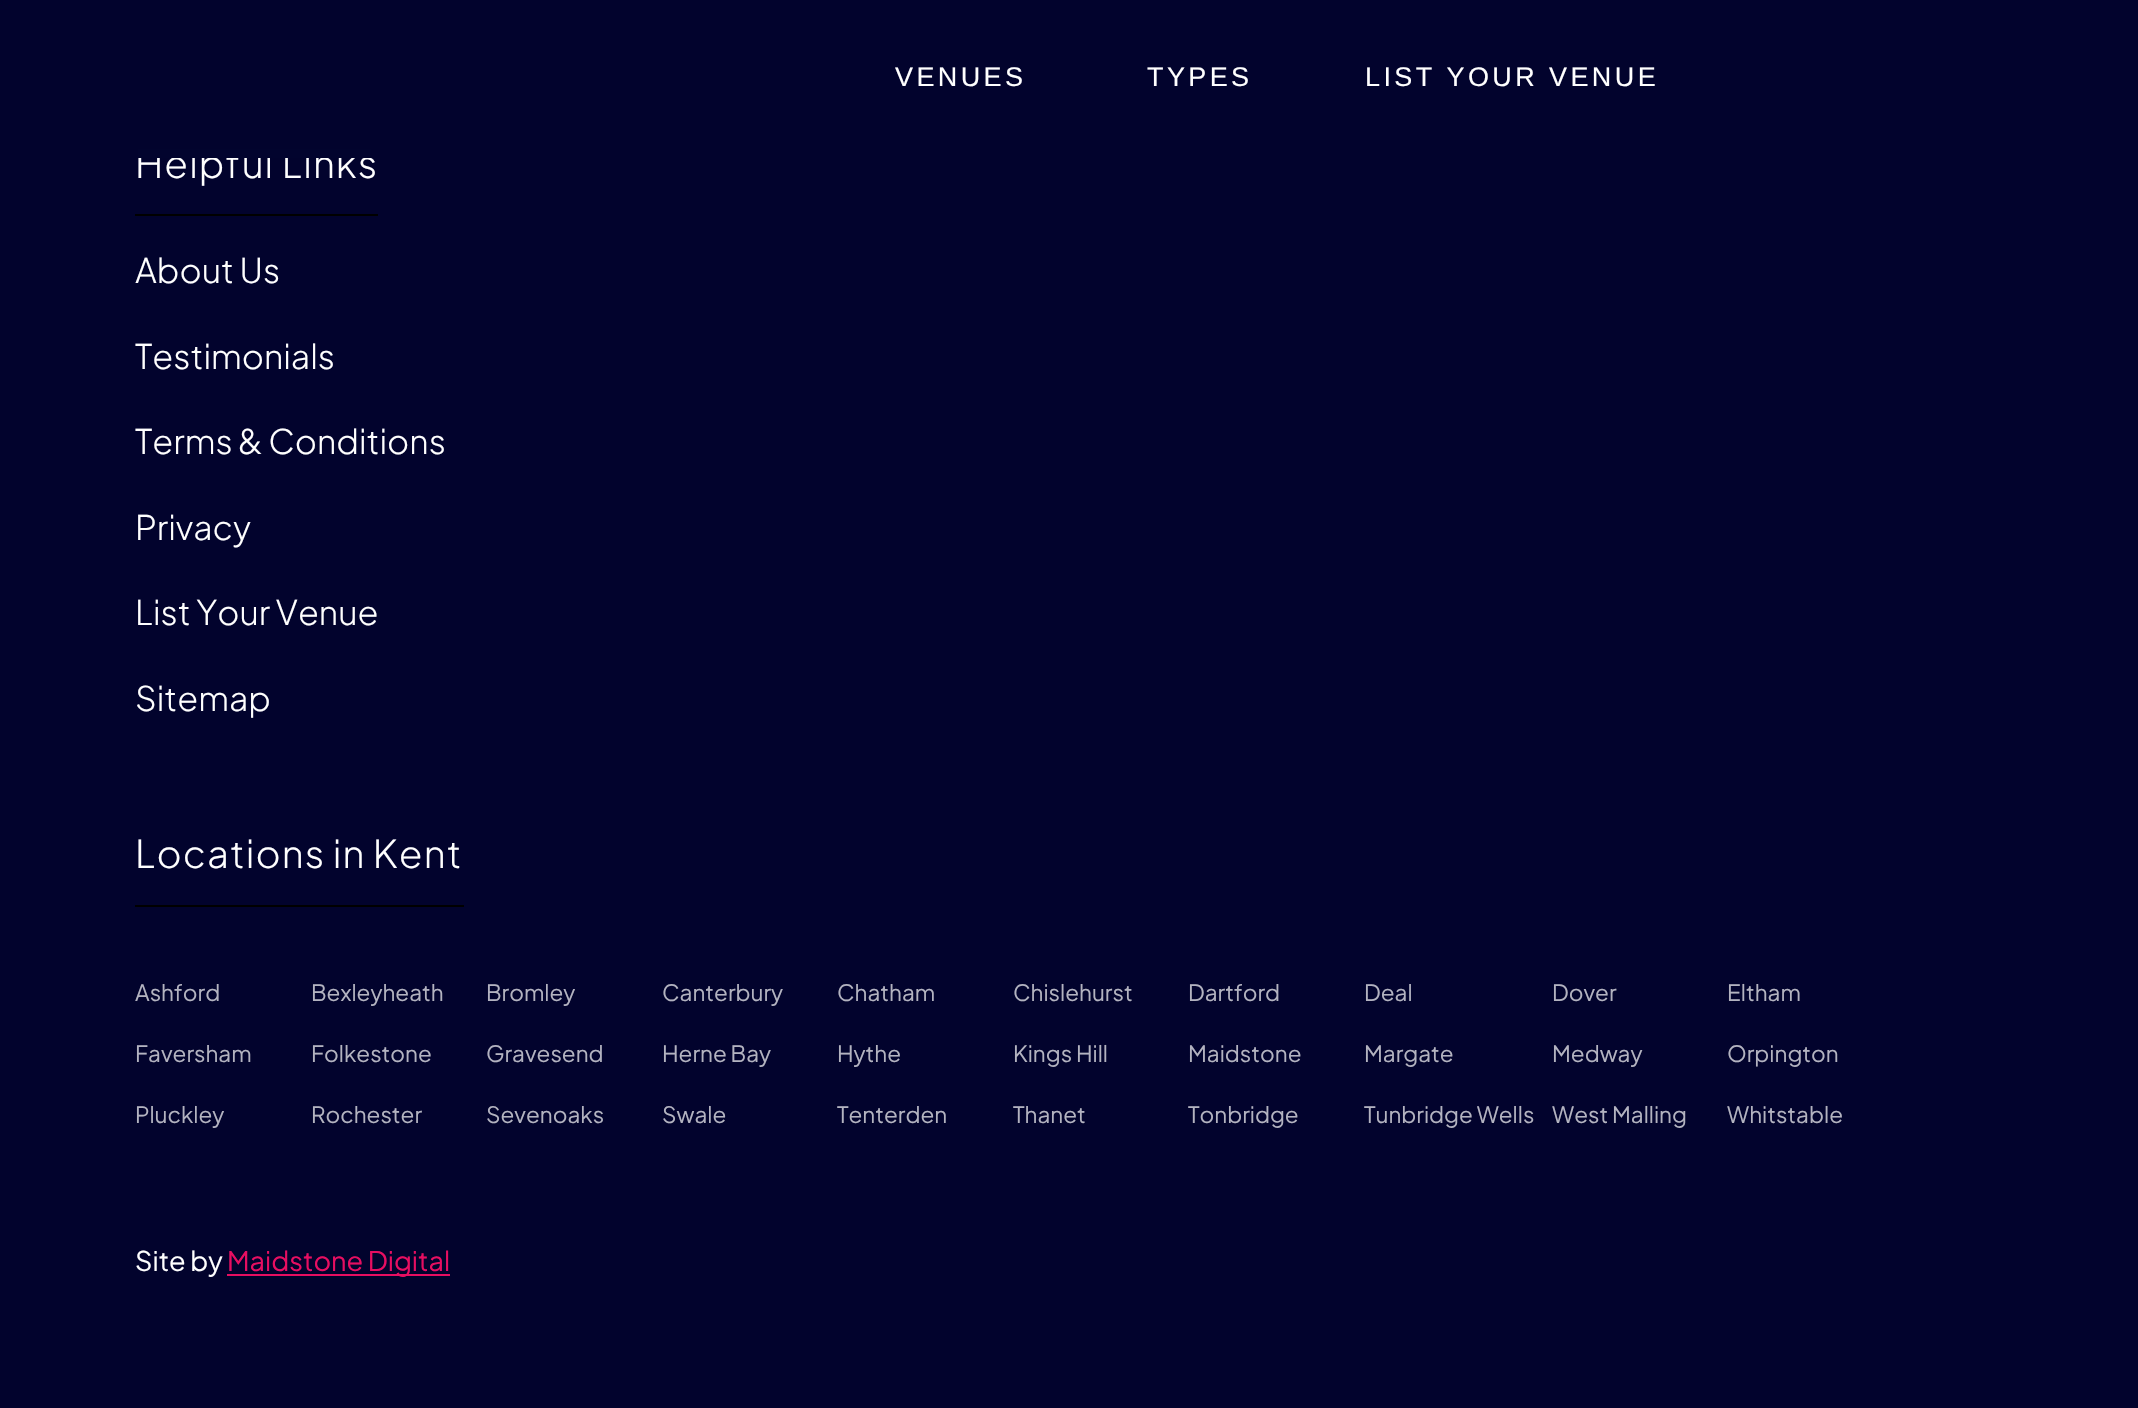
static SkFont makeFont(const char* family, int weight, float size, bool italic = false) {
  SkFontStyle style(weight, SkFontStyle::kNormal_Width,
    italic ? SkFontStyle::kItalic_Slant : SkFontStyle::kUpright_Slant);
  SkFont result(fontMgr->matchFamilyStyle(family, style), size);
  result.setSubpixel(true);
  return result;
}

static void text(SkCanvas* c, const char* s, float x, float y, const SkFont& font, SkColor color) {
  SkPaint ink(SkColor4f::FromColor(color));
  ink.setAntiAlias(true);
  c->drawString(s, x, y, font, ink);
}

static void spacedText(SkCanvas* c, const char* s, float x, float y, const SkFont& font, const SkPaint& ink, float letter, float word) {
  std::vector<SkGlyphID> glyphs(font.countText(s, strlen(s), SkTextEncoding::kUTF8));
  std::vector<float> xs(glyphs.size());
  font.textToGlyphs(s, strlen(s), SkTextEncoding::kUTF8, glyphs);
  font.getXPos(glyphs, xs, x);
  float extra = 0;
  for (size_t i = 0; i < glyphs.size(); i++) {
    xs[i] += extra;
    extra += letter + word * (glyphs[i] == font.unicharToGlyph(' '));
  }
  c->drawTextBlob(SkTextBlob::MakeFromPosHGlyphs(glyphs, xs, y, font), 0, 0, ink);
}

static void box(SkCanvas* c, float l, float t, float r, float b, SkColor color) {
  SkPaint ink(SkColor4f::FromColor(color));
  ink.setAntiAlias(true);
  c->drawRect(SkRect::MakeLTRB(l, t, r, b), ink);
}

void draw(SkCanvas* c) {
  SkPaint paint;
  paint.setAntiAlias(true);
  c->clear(0xff02032d);
  SkFont face1 = makeFont("Plus Jakarta Sans", 300, 38.25f);
  paint.setColor(0xffffffff);
  spacedText(c, "Helpful Links", 135, 178, face1, paint, 1.1f, 0);
  box(c, 138, 149, 371, 158, 0xff02042e);
  SkFont face2 = makeFont("Liberation Sans", 400, 27);
  spacedText(c, "VENUES", 895, 86, face2, paint, 3.4f, 0);
  spacedText(c, "TYPES", 1147, 86, face2, paint, 3.4f, 0);
  spacedText(c, "LIST YOUR VENUE", 1365, 86, face2, paint, 3.4f, 0);
  box(c, 135, 214, 378, 216, 0xff000000);
  SkFont face3 = makeFont("Plus Jakarta Sans", 300, 33.75f);
  text(c, "About Us", 135, 283, face3, 0xffffffff);
  text(c, "Testimonials", 135, 369, face3, 0xffffffff);
  text(c, "Terms & Conditions", 135, 454, face3, 0xffffffff);
  text(c, "Privacy", 135, 540, face3, 0xffffffff);
  text(c, "List Your Venue", 135, 625, face3, 0xffffffff);
  text(c, "Sitemap", 135, 711, face3, 0xffffffff);
  box(c, 135, 905, 464, 907, 0xff000000);
  spacedText(c, "Locations in Kent", 135, 868, face1, paint, 1.1f, 0);
  SkFont face4 = makeFont("Plus Jakarta Sans", 400, 22.5f);
  text(c, "Ashford", 135, 1001, face4, 0xffb3b3c0);
  text(c, "Bexleyheath", 311, 1001, face4, 0xffb3b3c0);
  text(c, "Bromley", 486, 1001, face4, 0xffb3b3c0);
  text(c, "Canterbury", 662, 1001, face4, 0xffb3b3c0);
  text(c, "Chatham", 837, 1001, face4, 0xffb3b3c0);
  text(c, "Chislehurst", 1013, 1001, face4, 0xffb3b3c0);
  text(c, "Dartford", 1188, 1001, face4, 0xffb3b3c0);
  text(c, "Deal", 1364, 1001, face4, 0xffb3b3c0);
  text(c, "Dover", 1552, 1001, face4, 0xffb3b3c0);
  text(c, "Eltham", 1727, 1001, face4, 0xffb3b3c0);
  text(c, "Faversham", 135, 1062, face4, 0xffb3b3c0);
  text(c, "Folkestone", 311, 1062, face4, 0xffb3b3c0);
  text(c, "Gravesend", 486, 1062, face4, 0xffb3b3c0);
  text(c, "Herne Bay", 662, 1062, face4, 0xffb3b3c0);
  text(c, "Hythe", 837, 1062, face4, 0xffb3b3c0);
  text(c, "Kings Hill", 1013, 1062, face4, 0xffb3b3c0);
  text(c, "Maidstone", 1188, 1062, face4, 0xffb3b3c0);
  text(c, "Margate", 1364, 1062, face4, 0xffb3b3c0);
  text(c, "Medway", 1552, 1062, face4, 0xffb3b3c0);
  text(c, "Orpington", 1727, 1062, face4, 0xffb3b3c0);
  text(c, "Pluckley", 135, 1123, face4, 0xffb3b3c0);
  text(c, "Rochester", 311, 1123, face4, 0xffb3b3c0);
  text(c, "Sevenoaks", 486, 1123, face4, 0xffb3b3c0);
  text(c, "Swale", 662, 1123, face4, 0xffb3b3c0);
  text(c, "Tenterden", 837, 1123, face4, 0xffb3b3c0);
  text(c, "Thanet", 1013, 1123, face4, 0xffb3b3c0);
  text(c, "Tonbridge", 1188, 1123, face4, 0xffb3b3c0);
  text(c, "Tunbridge Wells", 1364, 1123, face4, 0xffb3b3c0);
  text(c, "West Malling", 1552, 1123, face4, 0xffb3b3c0);
  text(c, "Whitstable", 1727, 1123, face4, 0xffb3b3c0);
  SkFont face5 = makeFont("Plus Jakarta Sans", 400, 27);
  text(c, "Site by", 135, 1271, face5, 0xffffffff);
  box(c, 227, 1274, 450, 1276, 0xffe70e61);
  text(c, "Maidstone Digital", 227, 1271, face5, 0xffe70e61);
}
